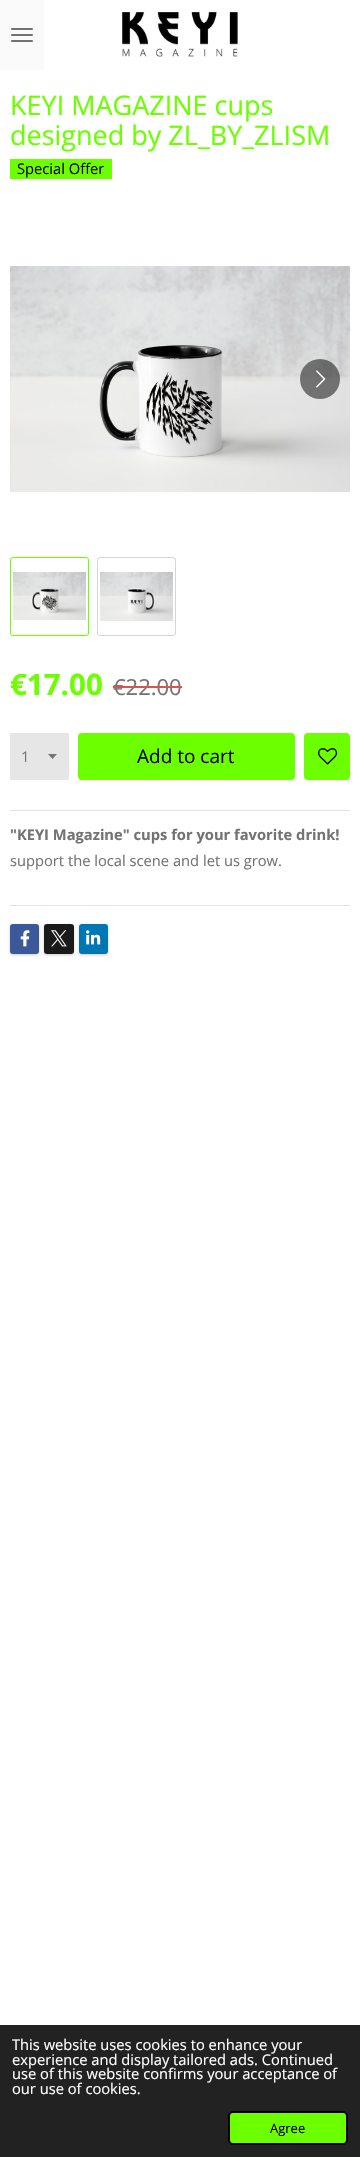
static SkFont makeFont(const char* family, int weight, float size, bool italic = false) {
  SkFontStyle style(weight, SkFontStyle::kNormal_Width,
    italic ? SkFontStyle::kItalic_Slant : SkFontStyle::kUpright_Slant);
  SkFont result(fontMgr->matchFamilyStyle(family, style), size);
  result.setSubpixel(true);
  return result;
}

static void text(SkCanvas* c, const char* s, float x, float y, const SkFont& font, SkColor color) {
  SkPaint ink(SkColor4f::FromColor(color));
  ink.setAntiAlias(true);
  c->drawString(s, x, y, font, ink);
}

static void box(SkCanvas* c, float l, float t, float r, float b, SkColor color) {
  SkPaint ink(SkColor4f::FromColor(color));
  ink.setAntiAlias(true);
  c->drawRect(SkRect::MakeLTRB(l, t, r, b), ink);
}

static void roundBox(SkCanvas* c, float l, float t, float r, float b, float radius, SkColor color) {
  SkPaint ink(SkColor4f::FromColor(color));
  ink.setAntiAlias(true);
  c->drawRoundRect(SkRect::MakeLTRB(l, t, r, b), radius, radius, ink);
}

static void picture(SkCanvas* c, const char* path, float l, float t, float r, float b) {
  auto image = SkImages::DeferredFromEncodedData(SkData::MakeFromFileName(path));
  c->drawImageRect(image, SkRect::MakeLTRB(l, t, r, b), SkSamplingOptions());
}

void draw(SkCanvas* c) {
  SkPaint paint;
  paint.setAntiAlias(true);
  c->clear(0xffffffff);
  box(c, 0, 0, 44, 70, 0xfffafafa);
  roundBox(c, 11, 34, 33, 36, 1, 0xff737373);
  roundBox(c, 11, 28, 33, 30, 1, 0xff737373);
  roundBox(c, 11, 40, 33, 42, 1, 0xff737373);
  picture(c, "img_01.png", 122, 12, 238, 57);
  SkFont face1 = makeFont("Open Sans", 400, 27);
  text(c, "KEYI MAGAZINE cups", 10, 115, face1, 0xff6cff00);
  text(c, "designed by ZL_BY_ZLISM", 10, 145, face1, 0xff6cff00);
  box(c, 10, 159, 112, 179, 0xff6cff00);
  SkFont face2 = makeFont("Open Sans", 400, 14.7f);
  text(c, "Special Offer", 17, 174, face2, 0xff000000);
  picture(c, "img_02.png", 10, 266, 350, 492);
  paint.setColor(0x80000000);
  c->drawCircle(320, 379, 20, paint);
  picture(c, "img_03.png", 316, 370, 326, 388);
  paint.setStyle(SkPaint::kStroke_Style);
  paint.setStrokeWidth(1);
  paint.setColor(0xff6cff00);
  c->drawRoundRect(SkRect::MakeLTRB(10.5f, 557.5f, 88.5f, 635.5f), 2.5f, 2.5f, paint);
  picture(c, "img_04.png", 13, 572, 86, 620);
  paint.setColor(0xffd5d5d5);
  c->drawRoundRect(SkRect::MakeLTRB(97.5f, 557.5f, 175.5f, 635.5f), 2.5f, 2.5f, paint);
  picture(c, "img_05.png", 100, 572, 173, 621);
  SkFont face3 = makeFont("Open Sans", 700, 29.5f);
  text(c, "€17.00", 10, 695, face3, 0xff6cff00);
  SkFont face4 = makeFont("Open Sans", 400, 22);
  text(c, "€22.00", 113, 695, face4, 0xff737373);
  box(c, 113, 686, 182, 688, 0xffd9534f);
  box(c, 10, 733, 69, 780, 0xffe6e6e6);
  paint.setStyle(SkPaint::kFill_Style);
  paint.setColor(0xff737373);
  c->drawPath(SkPathBuilder().moveTo(52.5f, 759).lineTo(48, 754).lineTo(57, 754).close().detach(), paint);
  text(c, "1", 21, 762, face2, 0xff737373);
  roundBox(c, 78, 733, 295, 780, 4, 0xff6cff00);
  SkFont face5 = makeFont("Open Sans", 400, 19);
  text(c, "Add to cart", 137, 763, face5, 0xff000000);
  roundBox(c, 304, 733, 350, 780, 4, 0xff6cff00);
  picture(c, "img_06.png", 318, 748, 338, 765);
  box(c, 10, 810, 350, 811, 0xffe3e3e3);
  SkFont face6 = makeFont("Open Sans", 700, 14.7f);
  text(c, "\"KEYI Magazine\" cups for your favorite drink!", 10, 840, face6, 0xff737373);
  text(c, "support the local scene and let us grow.", 10, 866, face2, 0xff737373);
  box(c, 10, 905, 350, 906, 0xffe3e3e3);
  paint.setColor(0x33000000);
  paint.setMaskFilter(SkMaskFilter::MakeBlur(kNormal_SkBlurStyle, 1.5f));
  c->drawRoundRect(SkRect::MakeLTRB(10, 925, 39, 955), 3, 3, paint);
  paint.setMaskFilter(nullptr);
  roundBox(c, 10, 924, 39, 954, 3, 0xff3b5998);
  picture(c, "img_07.png", 20, 930, 30, 947);
  paint.setMaskFilter(SkMaskFilter::MakeBlur(kNormal_SkBlurStyle, 1.5f));
  c->drawRoundRect(SkRect::MakeLTRB(44, 925, 74, 955), 3, 3, paint);
  paint.setMaskFilter(nullptr);
  roundBox(c, 44, 924, 74, 954, 3, 0xff1a1a1a);
  picture(c, "img_08.png", 51, 930, 67, 947);
  paint.setMaskFilter(SkMaskFilter::MakeBlur(kNormal_SkBlurStyle, 1.5f));
  c->drawRoundRect(SkRect::MakeLTRB(79, 925, 108, 955), 3, 3, paint);
  paint.setMaskFilter(nullptr);
  roundBox(c, 79, 924, 108, 954, 3, 0xff0077b5);
  picture(c, "img_09.png", 86, 930, 101, 945);
  box(c, 0, 2025, 360, 2157, 0xff222222);
  text(c, "This website uses cookies to enhance your", 12, 2050, face2, 0xffffffff);
  text(c, "experience and display tailored ads. Continued", 12, 2065, face2, 0xffffffff);
  text(c, "use of this website confirms your acceptance of", 12, 2079, face2, 0xffffffff);
  text(c, "our use of cookies.", 12, 2094, face2, 0xffffffff);
  paint.setColor(0xff6cff00);
  c->drawRoundRect(SkRect::MakeLTRB(229, 2112, 347, 2144), 4, 4, paint);
  paint.setStyle(SkPaint::kStroke_Style);
  paint.setStrokeWidth(2);
  paint.setColor(0xff000000);
  c->drawRoundRect(SkRect::MakeLTRB(229, 2112, 347, 2144), 4, 4, paint);
  SkFont face7 = makeFont("Open Sans", 400, 13);
  text(c, "Agree", 270, 2133, face7, 0xff000000);
}
